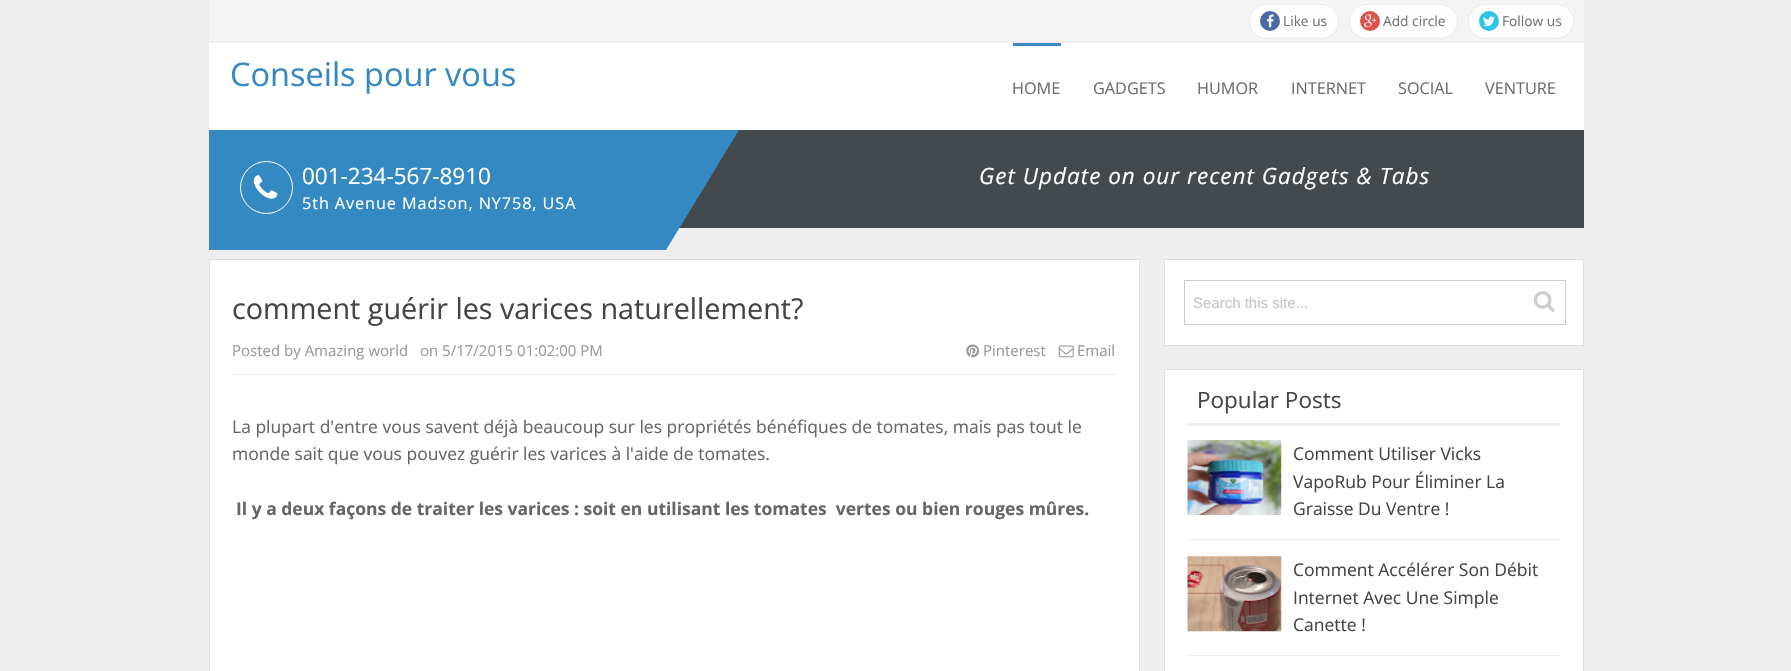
static SkFont makeFont(const char* family, int weight, float size, bool italic = false) {
  SkFontStyle style(weight, SkFontStyle::kNormal_Width,
    italic ? SkFontStyle::kItalic_Slant : SkFontStyle::kUpright_Slant);
  SkFont result(fontMgr->matchFamilyStyle(family, style), size);
  result.setSubpixel(true);
  return result;
}

static void text(SkCanvas* c, const char* s, float x, float y, const SkFont& font, SkColor color) {
  SkPaint ink(SkColor4f::FromColor(color));
  ink.setAntiAlias(true);
  c->drawString(s, x, y, font, ink);
}

static void spacedText(SkCanvas* c, const char* s, float x, float y, const SkFont& font, const SkPaint& ink, float letter, float word) {
  std::vector<SkGlyphID> glyphs(font.countText(s, strlen(s), SkTextEncoding::kUTF8));
  std::vector<float> xs(glyphs.size());
  font.textToGlyphs(s, strlen(s), SkTextEncoding::kUTF8, glyphs);
  font.getXPos(glyphs, xs, x);
  float extra = 0;
  for (size_t i = 0; i < glyphs.size(); i++) {
    xs[i] += extra;
    extra += letter + word * (glyphs[i] == font.unicharToGlyph(' '));
  }
  c->drawTextBlob(SkTextBlob::MakeFromPosHGlyphs(glyphs, xs, y, font), 0, 0, ink);
}

static void box(SkCanvas* c, float l, float t, float r, float b, SkColor color) {
  SkPaint ink(SkColor4f::FromColor(color));
  ink.setAntiAlias(true);
  c->drawRect(SkRect::MakeLTRB(l, t, r, b), ink);
}

static void picture(SkCanvas* c, const char* path, float l, float t, float r, float b) {
  auto image = SkImages::DeferredFromEncodedData(SkData::MakeFromFileName(path));
  c->drawImageRect(image, SkRect::MakeLTRB(l, t, r, b), SkSamplingOptions());
}

void draw(SkCanvas* c) {
  SkPaint paint;
  paint.setAntiAlias(true);
  c->clear(0xffeeeeee);
  box(c, 209, 0, 1584, 43, 0xfff4f4f4);
  box(c, 209, 41, 1584, 42, 0xffededed);
  paint.setColor(0xfffefefe);
  c->drawRoundRect(SkRect::MakeLTRB(1249.5f, 4.5f, 1338.5f, 38.5f), 17, 17, paint);
  paint.setStyle(SkPaint::kStroke_Style);
  paint.setStrokeWidth(1);
  paint.setColor(0xffeaeaea);
  c->drawRoundRect(SkRect::MakeLTRB(1249.5f, 4.5f, 1338.5f, 38.5f), 17, 17, paint);
  paint.setStyle(SkPaint::kFill_Style);
  paint.setColor(0xff4e69a1);
  c->drawCircle(1270, 21, 10, paint);
  picture(c, "img_01.png", 1267, 14, 1274, 28);
  SkFont face1 = makeFont("Open Sans", 400, 13.75f);
  text(c, "Like us", 1283, 26, face1, 0xff747474);
  paint.setColor(0xfffefefe);
  c->drawRoundRect(SkRect::MakeLTRB(1349.5f, 4.5f, 1457.5f, 38.5f), 17, 17, paint);
  paint.setStyle(SkPaint::kStroke_Style);
  paint.setColor(0xffeaeaea);
  c->drawRoundRect(SkRect::MakeLTRB(1349.5f, 4.5f, 1457.5f, 38.5f), 17, 17, paint);
  paint.setStyle(SkPaint::kFill_Style);
  paint.setColor(0xffd95349);
  c->drawCircle(1370, 21, 10, paint);
  picture(c, "img_02.png", 1364, 14, 1377, 28);
  text(c, "Add circle", 1383, 26, face1, 0xff747474);
  paint.setColor(0xfffefefe);
  c->drawRoundRect(SkRect::MakeLTRB(1468.5f, 4.5f, 1573.5f, 38.5f), 17, 17, paint);
  paint.setStyle(SkPaint::kStroke_Style);
  paint.setColor(0xffeaeaea);
  c->drawRoundRect(SkRect::MakeLTRB(1468.5f, 4.5f, 1573.5f, 38.5f), 17, 17, paint);
  paint.setStyle(SkPaint::kFill_Style);
  paint.setColor(0xff2fc4e7);
  c->drawCircle(1489, 21, 10, paint);
  picture(c, "img_03.png", 1483, 16, 1495, 27);
  text(c, "Follow us", 1502, 26, face1, 0xff747474);
  box(c, 209, 43, 1584, 130, 0xffffffff);
  SkFont face2 = makeFont("Open Sans", 400, 32.5f);
  text(c, "Conseils pour vous", 230, 86, face2, 0xff3589c3);
  box(c, 1013, 43, 1061, 46, 0xff3589c3);
  SkFont face3 = makeFont("Open Sans", 400, 16.25f);
  text(c, "HOME", 1012, 94, face3, 0xff6f6b6b);
  text(c, "GADGETS", 1093, 94, face3, 0xff6f6b6b);
  text(c, "HUMOR", 1197, 94, face3, 0xff6f6b6b);
  text(c, "INTERNET", 1291, 94, face3, 0xff6f6b6b);
  text(c, "SOCIAL", 1398, 94, face3, 0xff6f6b6b);
  text(c, "VENTURE", 1485, 94, face3, 0xff6f6b6b);
  box(c, 679, 130, 1584, 228, 0xff43494c);
  box(c, 209, 130, 666, 250, 0xff3589c3);
  paint.setStyle(SkPaint::kStroke_Style);
  paint.setColor(0xffffffff);
  c->drawCircle(266.5f, 187.5f, 26, paint);
  picture(c, "img_04.png", 253, 175, 278, 199);
  SkFont face4 = makeFont("Open Sans", 400, 22.5f);
  text(c, "001-234-567-8910", 302, 184, face4, 0xffffffff);
  paint.setStyle(SkPaint::kFill_Style);
  paint.setColor(0xff3589c3);
  c->drawPath(SkPathBuilder().moveTo(666, 130).lineTo(739, 130).lineTo(666, 250).close().detach(), paint);
  paint.setColor(0xffffffff);
  spacedText(c, "5th Avenue Madson, NY758, USA", 302, 209, face3, paint, 0.9f, 0);
  SkFont face5 = makeFont("Open Sans", 400, 22.5f, true);
  spacedText(c, "Get Update on our recent Gadgets & Tabs", 979, 184, face5, paint, 1, 0);
  c->drawRect(SkRect::MakeLTRB(209.5f, 259.5f, 1139.5f, 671.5f), paint);
  paint.setStyle(SkPaint::kStroke_Style);
  paint.setColor(0xffdfdfdf);
  c->drawRect(SkRect::MakeLTRB(209.5f, 259.5f, 1139.5f, 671.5f), paint);
  SkFont face6 = makeFont("Open Sans", 400, 28.75f);
  text(c, "comment guérir les varices naturellement?", 232, 319, face6, 0xff444444);
  box(c, 233, 374, 1116, 375, 0xffeaeaea);
  SkFont face7 = makeFont("Open Sans", 400, 15);
  text(c, "Posted by Amazing world", 232, 356, face7, 0xff999999);
  text(c, "on 5/17/2015 01:02:00 PM", 420, 356, face7, 0xff999999);
  picture(c, "img_05.png", 966, 344, 980, 358);
  text(c, "Pinterest", 983, 356, face7, 0xff999999);
  picture(c, "img_06.png", 1058, 345, 1074, 358);
  text(c, "Email", 1077, 356, face7, 0xff999999);
  SkFont face8 = makeFont("Open Sans", 400, 17.5f);
  text(c, "La plupart d'entre vous savent déjà beaucoup sur les propriétés bénéfiques de tomates, mais pas tout le", 232, 433, face8, 0xff666666);
  text(c, "monde sait que vous pouvez guérir les varices à l'aide de tomates.", 232, 460, face8, 0xff666666);
  SkFont face9 = makeFont("Open Sans", 700, 17.5f);
  text(c, "Il y a deux façons de traiter les varices : soit en utilisant les tomates  vertes ou bien rouges mûres.", 236, 515, face9, 0xff666666);
  paint.setStyle(SkPaint::kFill_Style);
  paint.setColor(0xffffffff);
  c->drawRect(SkRect::MakeLTRB(1164.5f, 259.5f, 1583.5f, 345.5f), paint);
  paint.setStyle(SkPaint::kStroke_Style);
  paint.setColor(0xffdfdfdf);
  c->drawRect(SkRect::MakeLTRB(1164.5f, 259.5f, 1583.5f, 345.5f), paint);
  paint.setColor(0xffcccccc);
  c->drawRect(SkRect::MakeLTRB(1184.5f, 280.5f, 1565.5f, 324.5f), paint);
  SkFont face10 = makeFont("Liberation Sans", 400, 15);
  text(c, "Search this site...", 1193, 308, face10, 0xffc5c5c5);
  picture(c, "img_07.png", 1533, 291, 1555, 312);
  paint.setStyle(SkPaint::kFill_Style);
  paint.setColor(0xffffffff);
  c->drawRect(SkRect::MakeLTRB(1164.5f, 369.5f, 1583.5f, 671.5f), paint);
  paint.setStyle(SkPaint::kStroke_Style);
  paint.setColor(0xffdfdfdf);
  c->drawRect(SkRect::MakeLTRB(1164.5f, 369.5f, 1583.5f, 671.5f), paint);
  box(c, 1188, 423, 1560, 426, 0xffeeeeee);
  text(c, "Popular Posts", 1197, 408, face4, 0xff444444);
  box(c, 1188, 539, 1560, 540, 0xffeeeeee);
  picture(c, "img_08.png", 1187, 440, 1282, 515);
  text(c, "Comment Utiliser Vicks", 1293, 460, face8, 0xff444444);
  text(c, "VapoRub Pour Éliminer La", 1293, 488, face8, 0xff444444);
  text(c, "Graisse Du Ventre !", 1293, 515, face8, 0xff444444);
  box(c, 1188, 655, 1560, 656, 0xffeeeeee);
  picture(c, "img_09.png", 1187, 556, 1282, 632);
  text(c, "Comment Accélérer Son Débit", 1293, 576, face8, 0xff444444);
  text(c, "Internet Avec Une Simple", 1293, 604, face8, 0xff444444);
  text(c, "Canette !", 1293, 631, face8, 0xff444444);
}
